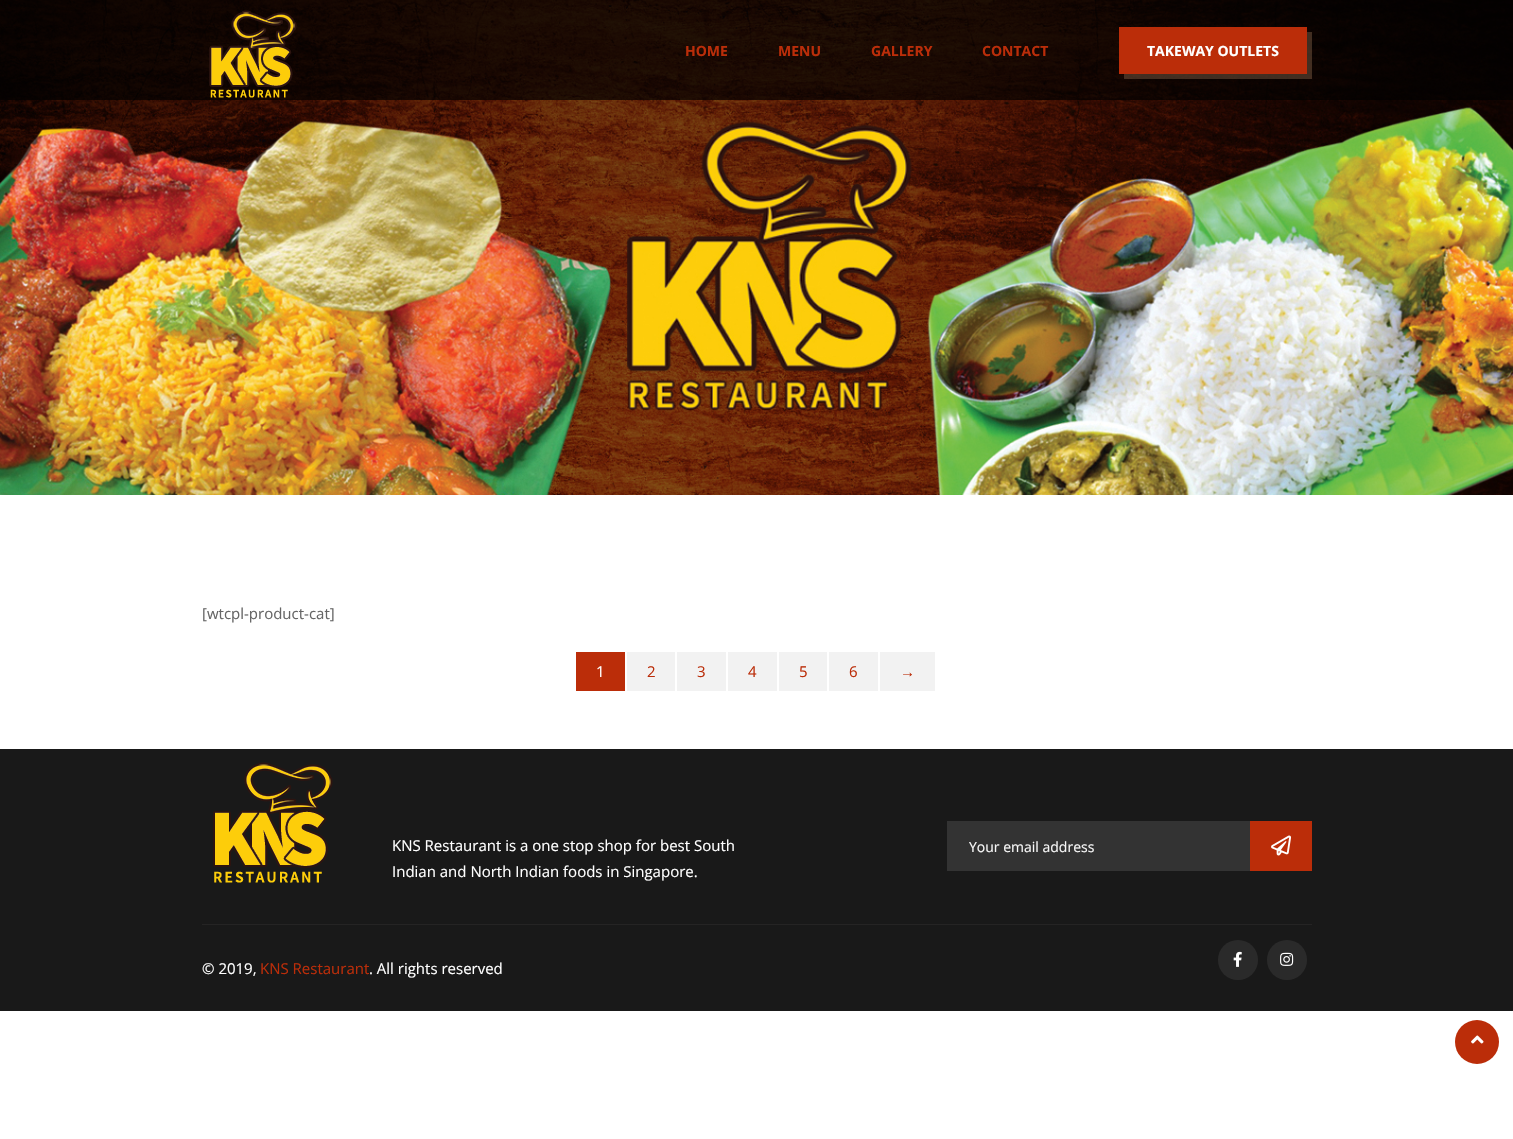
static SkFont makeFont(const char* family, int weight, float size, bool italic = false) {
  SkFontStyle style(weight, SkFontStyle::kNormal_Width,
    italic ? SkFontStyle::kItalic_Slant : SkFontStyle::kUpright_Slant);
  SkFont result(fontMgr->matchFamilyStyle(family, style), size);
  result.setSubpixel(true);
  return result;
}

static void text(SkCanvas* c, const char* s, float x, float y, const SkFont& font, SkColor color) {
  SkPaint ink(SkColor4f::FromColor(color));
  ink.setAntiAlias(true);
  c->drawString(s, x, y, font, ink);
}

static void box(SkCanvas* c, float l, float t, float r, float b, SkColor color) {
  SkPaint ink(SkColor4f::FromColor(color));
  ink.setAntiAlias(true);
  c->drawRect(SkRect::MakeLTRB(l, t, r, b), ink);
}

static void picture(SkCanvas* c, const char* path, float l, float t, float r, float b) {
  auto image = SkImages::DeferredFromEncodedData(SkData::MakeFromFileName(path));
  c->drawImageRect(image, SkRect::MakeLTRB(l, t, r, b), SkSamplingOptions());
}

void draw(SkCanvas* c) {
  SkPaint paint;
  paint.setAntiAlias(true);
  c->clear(0xffffffff);
  picture(c, "img_01.png", 0, 0, 1513, 495);
  box(c, 0, 0, 1513, 100, 0xb3000000);
  picture(c, "img_02.png", 209, 10, 297, 98);
  SkFont face1 = makeFont("Open Sans", 700, 14);
  text(c, "HOME", 685, 56, face1, 0xffbb2d09);
  text(c, "MENU", 778, 56, face1, 0xffbb2d09);
  text(c, "GALLERY", 871, 56, face1, 0xffbb2d09);
  text(c, "CONTACT", 982, 56, face1, 0xffbb2d09);
  paint.setColor(0x4dbc906b);
  c->drawPath(SkPathBuilder().moveTo(1124, 74).lineTo(1124, 79).lineTo(1312, 79).lineTo(1312, 32).lineTo(1307, 32).lineTo(1307, 74).close().detach(), paint);
  box(c, 1119, 27, 1307, 74, 0xffbb2d09);
  text(c, "TAKEWAY OUTLETS", 1147, 56, face1, 0xffffffff);
  SkFont face2 = makeFont("Open Sans", 400, 15);
  text(c, "[wtcpl-product-cat]", 202, 619, face2, 0xff666666);
  box(c, 576, 652, 625, 691, 0xffbb2d09);
  text(c, "1", 596, 677, face2, 0xffffffff);
  box(c, 627, 652, 675, 691, 0xfff2f2f2);
  text(c, "2", 647, 677, face2, 0xffbb2d09);
  box(c, 677, 652, 726, 691, 0xfff2f2f2);
  text(c, "3", 697, 677, face2, 0xffbb2d09);
  box(c, 728, 652, 777, 691, 0xfff2f2f2);
  text(c, "4", 748, 677, face2, 0xffbb2d09);
  box(c, 779, 652, 827, 691, 0xfff2f2f2);
  text(c, "5", 799, 677, face2, 0xffbb2d09);
  box(c, 829, 652, 878, 691, 0xfff2f2f2);
  text(c, "6", 849, 677, face2, 0xffbb2d09);
  box(c, 880, 652, 935, 691, 0xfff2f2f2);
  SkFont face3 = makeFont("Liberation Serif", 400, 15);
  text(c, "→", 900, 677, face3, 0xffbb2d09);
  box(c, 0, 749, 1513, 1011, 0xff191919);
  picture(c, "img_03.png", 213, 762, 333, 883);
  text(c, "KNS Restaurant is a one stop shop for best South", 392, 851, face2, 0xffffffff);
  text(c, "Indian and North Indian foods in Singapore.", 392, 877, face2, 0xffffffff);
  box(c, 947, 821, 1250, 871, 0xff333333);
  SkFont face4 = makeFont("Open Sans", 400, 14);
  text(c, "Your email address", 969, 852, face4, 0xfff7f7f7);
  box(c, 1250, 821, 1312, 871, 0xffbb2d09);
  picture(c, "img_04.png", 1271, 835, 1291, 856);
  box(c, 202, 924, 1312, 925, 0xff252424);
  text(c, "© 2019,", 202, 974, face2, 0xffffffff);
  text(c, "KNS Restaurant", 260, 974, face2, 0xffbb2d09);
  text(c, ". All rights reserved", 369, 974, face2, 0xffffffff);
  paint.setColor(0xff2a2a2a);
  c->drawCircle(1238, 960, 20, paint);
  picture(c, "img_05.png", 1233, 951, 1242, 967);
  c->drawCircle(1287, 960, 20, paint);
  picture(c, "img_06.png", 1280, 952, 1294, 966);
  paint.setColor(0xffbb2d09);
  c->drawCircle(1477, 1042, 22, paint);
  picture(c, "img_07.png", 1471, 1035, 1484, 1044);
}
